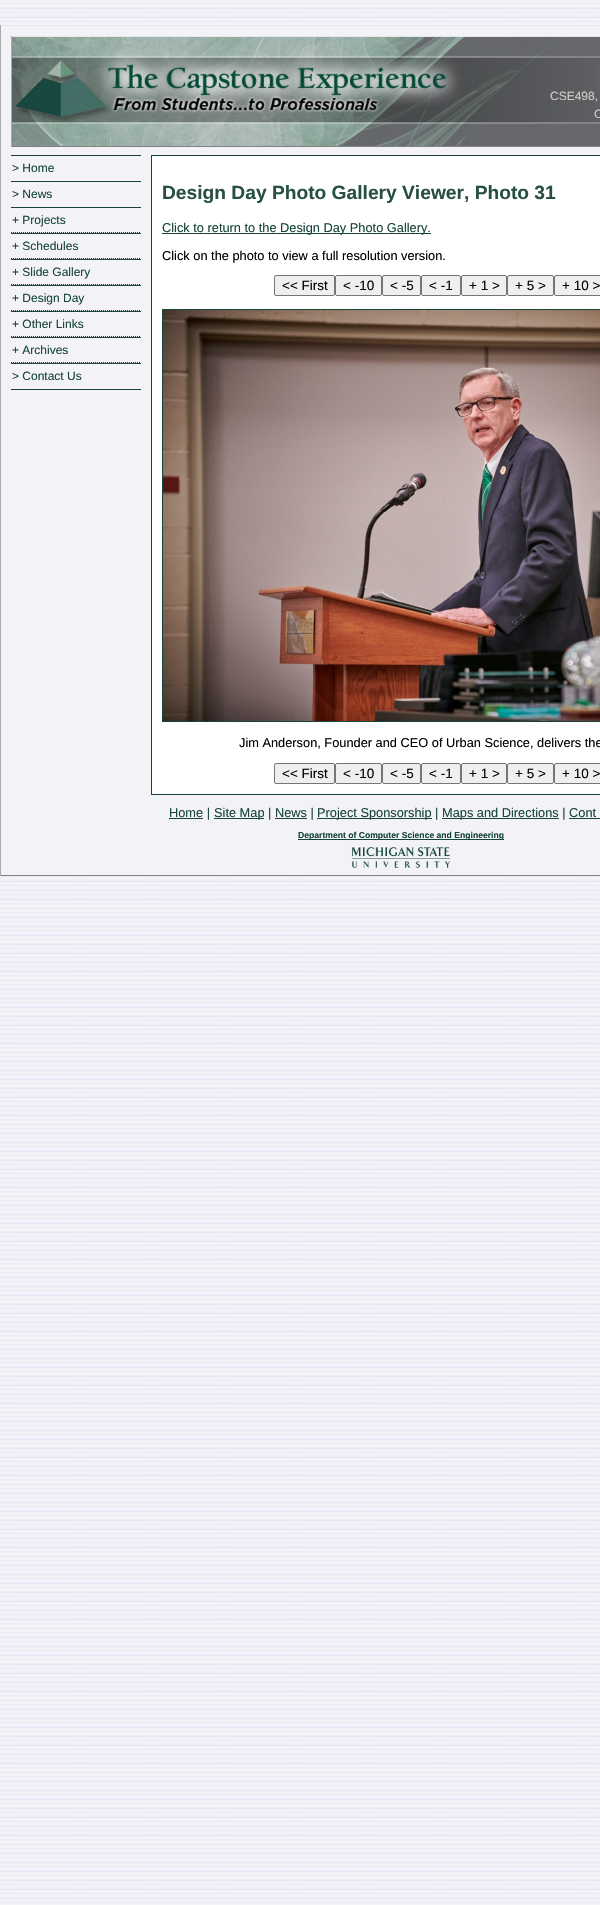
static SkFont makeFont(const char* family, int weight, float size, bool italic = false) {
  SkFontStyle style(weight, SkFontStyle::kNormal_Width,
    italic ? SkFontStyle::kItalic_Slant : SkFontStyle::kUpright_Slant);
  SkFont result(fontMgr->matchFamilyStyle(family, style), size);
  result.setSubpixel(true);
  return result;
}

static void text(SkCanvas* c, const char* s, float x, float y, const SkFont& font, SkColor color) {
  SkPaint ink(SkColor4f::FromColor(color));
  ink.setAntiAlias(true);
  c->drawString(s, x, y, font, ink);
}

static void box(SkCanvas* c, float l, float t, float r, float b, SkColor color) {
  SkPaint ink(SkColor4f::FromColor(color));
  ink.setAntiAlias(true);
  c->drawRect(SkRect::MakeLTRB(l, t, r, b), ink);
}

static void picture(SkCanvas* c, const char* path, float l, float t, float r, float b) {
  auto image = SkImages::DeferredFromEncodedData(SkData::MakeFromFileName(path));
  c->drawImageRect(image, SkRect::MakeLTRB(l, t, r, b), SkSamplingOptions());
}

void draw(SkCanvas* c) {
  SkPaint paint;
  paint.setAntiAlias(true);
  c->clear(0xffffffff);
  picture(c, "img_01.png", 0, 0, 600, 1905);
  box(c, 1, 26, 600, 873, 0xfff2f2f7);
  box(c, 0, 25, 600, 26, 0xffe6e6eb);
  box(c, 0, 875, 600, 876, 0xff808080);
  box(c, 0, 25, 1, 876, 0xffa9a9a9);
  picture(c, "img_02.png", 12, 37, 600, 146);
  box(c, 11, 36, 600, 37, 0xffe6e6eb);
  box(c, 11, 146, 600, 147, 0xff808080);
  box(c, 11, 36, 12, 147, 0xffa9a9a9);
  SkFont face1 = makeFont("Liberation Sans", 400, 12);
  text(c, "CSE498,", 550, 100, face1, 0xffcccccc);
  text(c, "C", 594, 118, face1, 0xffcccccc);
  box(c, 11, 155, 141, 156, 0xff18453b);
  box(c, 11, 181, 141, 182, 0xff18453b);
  text(c, "> Home", 12, 172, face1, 0xff18453b);
  box(c, 11, 207, 141, 208, 0xff18453b);
  text(c, "> News", 12, 198, face1, 0xff18453b);
  box(c, 11, 233, 141, 234, 0xff18453b);
  text(c, "+ Projects", 12, 224, face1, 0xff18453b);
  box(c, 11, 232, 141, 233, 0xffeeeeee);
  paint.setStyle(SkPaint::kStroke_Style);
  paint.setStrokeWidth(1);
  paint.setColor(0xff18453b);
  paint.setPathEffect(SkDashPathEffect::Make({{1, 1}}, 0));
  c->drawPath(SkPathBuilder().moveTo(11, 232.5f).lineTo(141, 232.5f).detach(), paint);
  paint.setPathEffect(nullptr);
  box(c, 11, 259, 141, 260, 0xff18453b);
  text(c, "+ Schedules", 12, 250, face1, 0xff18453b);
  box(c, 11, 258, 141, 259, 0xffeeeeee);
  paint.setPathEffect(SkDashPathEffect::Make({{1, 1}}, 0));
  c->drawPath(SkPathBuilder().moveTo(11, 258.5f).lineTo(141, 258.5f).detach(), paint);
  paint.setPathEffect(nullptr);
  box(c, 11, 285, 141, 286, 0xff18453b);
  text(c, "+ Slide Gallery", 12, 276, face1, 0xff18453b);
  box(c, 11, 284, 141, 285, 0xffeeeeee);
  paint.setPathEffect(SkDashPathEffect::Make({{1, 1}}, 0));
  c->drawPath(SkPathBuilder().moveTo(11, 284.5f).lineTo(141, 284.5f).detach(), paint);
  paint.setPathEffect(nullptr);
  box(c, 11, 311, 141, 312, 0xff18453b);
  text(c, "+ Design Day", 12, 302, face1, 0xff18453b);
  box(c, 11, 310, 141, 311, 0xffeeeeee);
  paint.setPathEffect(SkDashPathEffect::Make({{1, 1}}, 0));
  c->drawPath(SkPathBuilder().moveTo(11, 310.5f).lineTo(141, 310.5f).detach(), paint);
  paint.setPathEffect(nullptr);
  box(c, 11, 337, 141, 338, 0xff18453b);
  text(c, "+ Other Links", 12, 328, face1, 0xff18453b);
  box(c, 11, 336, 141, 337, 0xffeeeeee);
  paint.setPathEffect(SkDashPathEffect::Make({{1, 1}}, 0));
  c->drawPath(SkPathBuilder().moveTo(11, 336.5f).lineTo(141, 336.5f).detach(), paint);
  paint.setPathEffect(nullptr);
  box(c, 11, 363, 141, 364, 0xff18453b);
  text(c, "+ Archives", 12, 354, face1, 0xff18453b);
  box(c, 11, 362, 141, 363, 0xffeeeeee);
  paint.setPathEffect(SkDashPathEffect::Make({{1, 1}}, 0));
  c->drawPath(SkPathBuilder().moveTo(11, 362.5f).lineTo(141, 362.5f).detach(), paint);
  paint.setPathEffect(nullptr);
  box(c, 11, 389, 141, 390, 0xff18453b);
  text(c, "> Contact Us", 12, 380, face1, 0xff18453b);
  paint.setStyle(SkPaint::kFill_Style);
  paint.setColor(0xffffffff);
  c->drawRect(SkRect::MakeLTRB(151.5f, 155.5f, 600.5f, 794.5f), paint);
  paint.setStyle(SkPaint::kStroke_Style);
  paint.setColor(0xff18453b);
  c->drawRect(SkRect::MakeLTRB(151.5f, 155.5f, 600.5f, 794.5f), paint);
  SkFont face2 = makeFont("Liberation Sans", 700, 19.2f);
  text(c, "Design Day Photo Gallery Viewer, Photo 31", 162, 199, face2, 0xff284f44);
  box(c, 162, 233, 431, 234, 0xff18453b);
  SkFont face3 = makeFont("Liberation Sans", 400, 12.8f);
  text(c, "Click to return to the Design Day Photo Gallery.", 162, 232, face3, 0xff18453b);
  text(c, "Click on the photo to view a full resolution version.", 162, 260, face3, 0xff000000);
  paint.setStyle(SkPaint::kFill_Style);
  paint.setColor(0xffefefef);
  c->drawRoundRect(SkRect::MakeLTRB(274.5f, 275.5f, 334.5f, 295.5f), 1.5f, 1.5f, paint);
  paint.setStyle(SkPaint::kStroke_Style);
  paint.setColor(0xff767676);
  c->drawRoundRect(SkRect::MakeLTRB(274.5f, 275.5f, 334.5f, 295.5f), 1.5f, 1.5f, paint);
  SkFont face4 = makeFont("Liberation Sans", 400, 13.5f);
  text(c, "<< First", 282, 290, face4, 0xff000000);
  paint.setStyle(SkPaint::kFill_Style);
  paint.setColor(0xffefefef);
  c->drawRoundRect(SkRect::MakeLTRB(335.5f, 275.5f, 381.5f, 295.5f), 1.5f, 1.5f, paint);
  paint.setStyle(SkPaint::kStroke_Style);
  paint.setColor(0xff767676);
  c->drawRoundRect(SkRect::MakeLTRB(335.5f, 275.5f, 381.5f, 295.5f), 1.5f, 1.5f, paint);
  text(c, "< -10", 343, 290, face4, 0xff000000);
  paint.setStyle(SkPaint::kFill_Style);
  paint.setColor(0xffefefef);
  c->drawRoundRect(SkRect::MakeLTRB(382.5f, 275.5f, 420.5f, 295.5f), 1.5f, 1.5f, paint);
  paint.setStyle(SkPaint::kStroke_Style);
  paint.setColor(0xff767676);
  c->drawRoundRect(SkRect::MakeLTRB(382.5f, 275.5f, 420.5f, 295.5f), 1.5f, 1.5f, paint);
  text(c, "< -5", 390, 290, face4, 0xff000000);
  paint.setStyle(SkPaint::kFill_Style);
  paint.setColor(0xffefefef);
  c->drawRoundRect(SkRect::MakeLTRB(421.5f, 275.5f, 460.5f, 295.5f), 1.5f, 1.5f, paint);
  paint.setStyle(SkPaint::kStroke_Style);
  paint.setColor(0xff767676);
  c->drawRoundRect(SkRect::MakeLTRB(421.5f, 275.5f, 460.5f, 295.5f), 1.5f, 1.5f, paint);
  text(c, "< -1", 429, 290, face4, 0xff000000);
  paint.setStyle(SkPaint::kFill_Style);
  paint.setColor(0xffefefef);
  c->drawRoundRect(SkRect::MakeLTRB(461.5f, 275.5f, 506.5f, 295.5f), 1.5f, 1.5f, paint);
  paint.setStyle(SkPaint::kStroke_Style);
  paint.setColor(0xff767676);
  c->drawRoundRect(SkRect::MakeLTRB(461.5f, 275.5f, 506.5f, 295.5f), 1.5f, 1.5f, paint);
  text(c, "+ 1 >", 469, 290, face4, 0xff000000);
  paint.setStyle(SkPaint::kFill_Style);
  paint.setColor(0xffefefef);
  c->drawRoundRect(SkRect::MakeLTRB(507.5f, 275.5f, 553.5f, 295.5f), 1.5f, 1.5f, paint);
  paint.setStyle(SkPaint::kStroke_Style);
  paint.setColor(0xff767676);
  c->drawRoundRect(SkRect::MakeLTRB(507.5f, 275.5f, 553.5f, 295.5f), 1.5f, 1.5f, paint);
  text(c, "+ 5 >", 515, 290, face4, 0xff000000);
  paint.setStyle(SkPaint::kFill_Style);
  paint.setColor(0xffefefef);
  c->drawRoundRect(SkRect::MakeLTRB(554.5f, 275.5f, 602.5f, 295.5f), 1.5f, 1.5f, paint);
  paint.setStyle(SkPaint::kStroke_Style);
  paint.setColor(0xff767676);
  c->drawRoundRect(SkRect::MakeLTRB(554.5f, 275.5f, 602.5f, 295.5f), 1.5f, 1.5f, paint);
  text(c, "+ 10 >", 562, 290, face4, 0xff000000);
  paint.setColor(0xff18453b);
  c->drawRect(SkRect::MakeLTRB(162.5f, 309.5f, 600.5f, 721.5f), paint);
  picture(c, "img_03.png", 163, 310, 600, 721);
  text(c, "Jim Anderson, Founder and CEO of Urban Science, delivers the", 239, 747, face3, 0xff000000);
  paint.setStyle(SkPaint::kFill_Style);
  paint.setColor(0xffefefef);
  c->drawRoundRect(SkRect::MakeLTRB(274.5f, 763.5f, 334.5f, 783.5f), 1.5f, 1.5f, paint);
  paint.setStyle(SkPaint::kStroke_Style);
  paint.setColor(0xff767676);
  c->drawRoundRect(SkRect::MakeLTRB(274.5f, 763.5f, 334.5f, 783.5f), 1.5f, 1.5f, paint);
  text(c, "<< First", 282, 778, face4, 0xff000000);
  paint.setStyle(SkPaint::kFill_Style);
  paint.setColor(0xffefefef);
  c->drawRoundRect(SkRect::MakeLTRB(335.5f, 763.5f, 381.5f, 783.5f), 1.5f, 1.5f, paint);
  paint.setStyle(SkPaint::kStroke_Style);
  paint.setColor(0xff767676);
  c->drawRoundRect(SkRect::MakeLTRB(335.5f, 763.5f, 381.5f, 783.5f), 1.5f, 1.5f, paint);
  text(c, "< -10", 343, 778, face4, 0xff000000);
  paint.setStyle(SkPaint::kFill_Style);
  paint.setColor(0xffefefef);
  c->drawRoundRect(SkRect::MakeLTRB(382.5f, 763.5f, 420.5f, 783.5f), 1.5f, 1.5f, paint);
  paint.setStyle(SkPaint::kStroke_Style);
  paint.setColor(0xff767676);
  c->drawRoundRect(SkRect::MakeLTRB(382.5f, 763.5f, 420.5f, 783.5f), 1.5f, 1.5f, paint);
  text(c, "< -5", 390, 778, face4, 0xff000000);
  paint.setStyle(SkPaint::kFill_Style);
  paint.setColor(0xffefefef);
  c->drawRoundRect(SkRect::MakeLTRB(421.5f, 763.5f, 460.5f, 783.5f), 1.5f, 1.5f, paint);
  paint.setStyle(SkPaint::kStroke_Style);
  paint.setColor(0xff767676);
  c->drawRoundRect(SkRect::MakeLTRB(421.5f, 763.5f, 460.5f, 783.5f), 1.5f, 1.5f, paint);
  text(c, "< -1", 429, 778, face4, 0xff000000);
  paint.setStyle(SkPaint::kFill_Style);
  paint.setColor(0xffefefef);
  c->drawRoundRect(SkRect::MakeLTRB(461.5f, 763.5f, 506.5f, 783.5f), 1.5f, 1.5f, paint);
  paint.setStyle(SkPaint::kStroke_Style);
  paint.setColor(0xff767676);
  c->drawRoundRect(SkRect::MakeLTRB(461.5f, 763.5f, 506.5f, 783.5f), 1.5f, 1.5f, paint);
  text(c, "+ 1 >", 469, 778, face4, 0xff000000);
  paint.setStyle(SkPaint::kFill_Style);
  paint.setColor(0xffefefef);
  c->drawRoundRect(SkRect::MakeLTRB(507.5f, 763.5f, 553.5f, 783.5f), 1.5f, 1.5f, paint);
  paint.setStyle(SkPaint::kStroke_Style);
  paint.setColor(0xff767676);
  c->drawRoundRect(SkRect::MakeLTRB(507.5f, 763.5f, 553.5f, 783.5f), 1.5f, 1.5f, paint);
  text(c, "+ 5 >", 515, 778, face4, 0xff000000);
  paint.setStyle(SkPaint::kFill_Style);
  paint.setColor(0xffefefef);
  c->drawRoundRect(SkRect::MakeLTRB(554.5f, 763.5f, 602.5f, 783.5f), 1.5f, 1.5f, paint);
  paint.setStyle(SkPaint::kStroke_Style);
  paint.setColor(0xff767676);
  c->drawRoundRect(SkRect::MakeLTRB(554.5f, 763.5f, 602.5f, 783.5f), 1.5f, 1.5f, paint);
  text(c, "+ 10 >", 562, 778, face4, 0xff000000);
  box(c, 169, 818, 203, 819, 0xff18453b);
  text(c, "Home |", 169, 817, face3, 0xff18453b);
  box(c, 214, 818, 264, 819, 0xff18453b);
  text(c, "Site Map | News |", 214, 817, face3, 0xff18453b);
  box(c, 317, 818, 432, 819, 0xff18453b);
  text(c, "Project Sponsorship |", 317, 817, face3, 0xff18453b);
  box(c, 442, 818, 559, 819, 0xff18453b);
  text(c, "Maps and Directions | Cont", 442, 817, face3, 0xff18453b);
  box(c, 275, 818, 307, 819, 0xff18453b);
  box(c, 569, 818, 600, 819, 0xff18453b);
  box(c, 298, 839, 504, 840, 0xff18453b);
  SkFont face5 = makeFont("Liberation Sans", 700, 8.6f);
  text(c, "Department of Computer Science and Engineering", 298, 838, face5, 0xff18453b);
  picture(c, "img_04.png", 351, 847, 451, 868);
}
